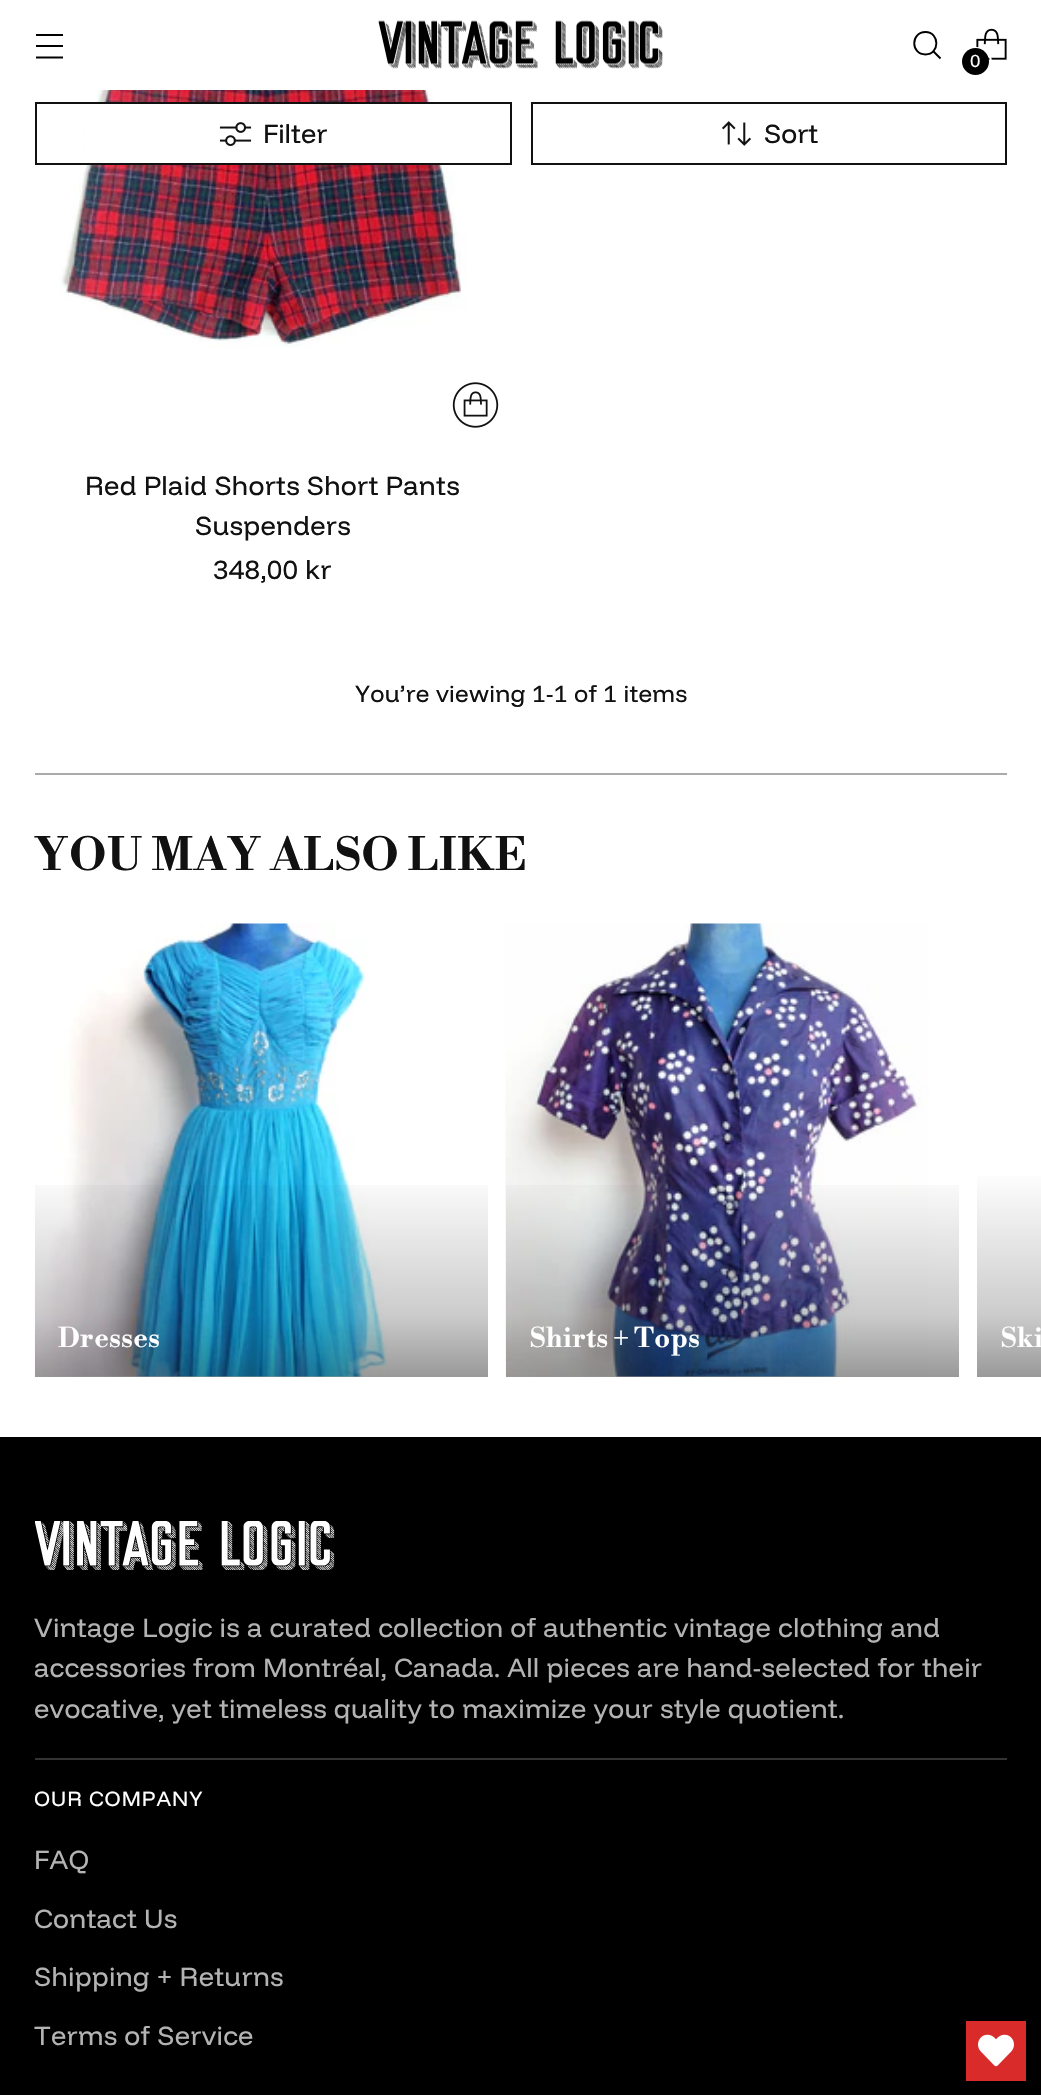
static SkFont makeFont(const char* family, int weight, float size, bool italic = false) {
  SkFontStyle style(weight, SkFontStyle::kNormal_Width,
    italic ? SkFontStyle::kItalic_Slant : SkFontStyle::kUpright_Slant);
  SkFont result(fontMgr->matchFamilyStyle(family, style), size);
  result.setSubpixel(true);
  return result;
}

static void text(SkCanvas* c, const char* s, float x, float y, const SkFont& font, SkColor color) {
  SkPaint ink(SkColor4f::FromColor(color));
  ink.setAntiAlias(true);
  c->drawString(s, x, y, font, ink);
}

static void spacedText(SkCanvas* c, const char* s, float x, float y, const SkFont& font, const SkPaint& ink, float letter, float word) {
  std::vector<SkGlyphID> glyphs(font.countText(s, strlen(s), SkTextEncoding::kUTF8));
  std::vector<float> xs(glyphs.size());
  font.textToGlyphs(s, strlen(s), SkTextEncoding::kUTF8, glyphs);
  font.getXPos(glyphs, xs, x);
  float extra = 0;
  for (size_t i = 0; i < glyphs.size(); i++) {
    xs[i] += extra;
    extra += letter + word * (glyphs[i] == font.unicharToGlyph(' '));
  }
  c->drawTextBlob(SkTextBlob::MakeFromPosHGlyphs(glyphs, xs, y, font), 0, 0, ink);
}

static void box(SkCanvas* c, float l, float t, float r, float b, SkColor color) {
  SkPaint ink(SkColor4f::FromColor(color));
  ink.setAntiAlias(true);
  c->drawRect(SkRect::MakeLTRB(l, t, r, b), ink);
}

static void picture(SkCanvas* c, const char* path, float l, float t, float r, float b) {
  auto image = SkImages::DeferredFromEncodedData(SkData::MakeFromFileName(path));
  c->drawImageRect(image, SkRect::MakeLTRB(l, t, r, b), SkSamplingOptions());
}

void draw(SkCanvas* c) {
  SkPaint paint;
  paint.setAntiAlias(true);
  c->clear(0xffffffff);
  paint.setStyle(SkPaint::kStroke_Style);
  paint.setStrokeWidth(1.9f);
  paint.setColor(0xff000000);
  c->drawPath(SkPathBuilder().moveTo(36, 46).lineTo(63, 46).moveTo(36, 35).lineTo(63, 35).moveTo(36, 57.5f).lineTo(63, 57.5f).detach(), paint);
  picture(c, "img_01.png", 378, 20, 663, 69);
  paint.setStrokeCap(SkPaint::kRound_Cap);
  c->drawPath(SkPathBuilder().moveTo(925.5f, 54.5f).cubicTo(940, 54.5f, 940, 32, 925.5f, 32).cubicTo(910.5f, 32, 910.5f, 54.5f, 925.5f, 54.5f).close().detach(), paint);
  paint.setStrokeCap(SkPaint::kButt_Cap);
  c->drawPath(SkPathBuilder().moveTo(933.5f, 51.5f).lineTo(940.5f, 58.5f).detach(), paint);
  picture(c, "img_02.png", 976, 28, 1007, 60);
  paint.setStrokeWidth(2);
  paint.setColor(0xffffffff);
  c->drawRoundRect(SkRect::MakeLTRB(961, 48, 991, 77), 14.5f, 14.5f, paint);
  paint.setStyle(SkPaint::kFill_Style);
  paint.setColor(0xff000000);
  c->drawCircle(975.5f, 61.5f, 13.5f, paint);
  SkFont face1 = makeFont("Funnel Display", 400, 18);
  paint.setColor(0xffffffff);
  spacedText(c, "0", 970, 67, face1, paint, 0.27f, 0);
  picture(c, "img_05.png", 60, 90, 467, 348);
  box(c, 85, 104, 442, 163, 0xffffffff);
  paint.setStyle(SkPaint::kStroke_Style);
  paint.setColor(0xff111111);
  c->drawRect(SkRect::MakeLTRB(36, 103, 511, 164), paint);
  picture(c, "img_03.png", 219, 122, 252, 146);
  SkFont face2 = makeFont("Funnel Display", 400, 27);
  text(c, "Filter", 263, 143, face2, 0xff111111);
  c->drawRect(SkRect::MakeLTRB(532, 103, 1006, 164), paint);
  picture(c, "img_04.png", 722, 121, 751, 146);
  text(c, "Sort", 764, 143, face2, 0xff111111);
  picture(c, "img_06.png", 452, 382, 499, 428);
  paint.setStyle(SkPaint::kFill_Style);
  spacedText(c, "Red Plaid Shorts Short Pants", 85, 495, face2, paint, 0.27f, 0);
  spacedText(c, "Suspenders", 195, 535, face2, paint, 0.27f, 0);
  spacedText(c, "348,00 kr", 213, 579, face2, paint, 0.27f, 0);
  SkFont face3 = makeFont("Funnel Display", 400, 24);
  spacedText(c, "You’re viewing 1-1 of 1 items", 355, 702, face3, paint, 0.27f, 0);
  box(c, 35, 773, 1007, 775, 0xffaaaaaa);
  SkFont face4 = makeFont("Libre Bodoni", 700, 45);
  spacedText(c, "YOU MAY ALSO LIKE", 34, 870, face4, paint, 0.9f, 0);
  picture(c, "img_07.png", 34, 923, 389, 1377);
  {
    const SkColor colors[] = {0x66000000, 0x33000000, 0x00000000};
    const float stops[] = {0, 0.3f, 1};
    const SkPoint ends[] = {{261, 1377}, {261, 1169}};
    paint.setShader(SkGradientShader::MakeLinear(ends, colors, stops, 3, SkTileMode::kClamp));
    paint.setAlpha(255);
  }
  c->drawRect(SkRect::MakeLTRB(35, 1185, 488, 1377), paint);
  SkFont face5 = makeFont("Libre Bodoni", 700, 27);
  paint.setShader(nullptr);
  paint.setColor(0xffffffff);
  spacedText(c, "Dresses", 58, 1347, face5, paint, 0.5f, 0);
  picture(c, "img_08.png", 505, 923, 929, 1377);
  {
    const SkColor colors[] = {0x66000000, 0x33000000, 0x00000000};
    const float stops[] = {0, 0.3f, 1};
    const SkPoint ends[] = {{732, 1377}, {732, 1169}};
    paint.setShader(SkGradientShader::MakeLinear(ends, colors, stops, 3, SkTileMode::kClamp));
    paint.setAlpha(255);
  }
  c->drawRect(SkRect::MakeLTRB(506, 1185, 959, 1377), paint);
  paint.setShader(nullptr);
  paint.setColor(0xffffffff);
  spacedText(c, "Shirts + Tops", 530, 1347, face5, paint, 0.5f, 0);
  {
    const SkColor colors[] = {0xff999999, 0xffcccccc, 0xffffffff};
    const float stops[] = {0, 0.3f, 1};
    const SkPoint ends[] = {{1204, 1377}, {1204, 1169}};
    paint.setShader(SkGradientShader::MakeLinear(ends, colors, stops, 3, SkTileMode::kClamp));
    paint.setAlpha(255);
  }
  c->drawRect(SkRect::MakeLTRB(977, 1176, 1041, 1377), paint);
  paint.setShader(nullptr);
  paint.setColor(0xffffffff);
  spacedText(c, "Ski", 1001, 1347, face5, paint, 0.5f, 0);
  box(c, 0, 1437, 1041, 2095, 0xff000000);
  box(c, 35, 1758, 1007, 1760, 0xff333333);
  picture(c, "img_09.png", 35, 1521, 335, 1570);
  paint.setColor(0xffb3b3b3);
  spacedText(c, "Vintage Logic is a curated collection of authentic vintage clothing and", 34, 1637, face2, paint, 0.27f, 0);
  spacedText(c, "accessories from Montréal, Canada. All pieces are hand-selected for their", 34, 1677, face2, paint, 0.27f, 0);
  spacedText(c, "evocative, yet timeless quality to maximize your style quotient.", 34, 1718, face2, paint, 0.27f, 0);
  SkFont face6 = makeFont("Funnel Display", 400, 21);
  paint.setColor(0xffffffff);
  spacedText(c, "OUR COMPANY", 34, 1806, face6, paint, 1, 0);
  paint.setColor(0xffb3b3b3);
  spacedText(c, "FAQ", 34, 1869, face2, paint, 0.27f, 0);
  spacedText(c, "Contact Us", 34, 1928, face2, paint, 0.27f, 0);
  spacedText(c, "Shipping + Returns", 34, 1986, face2, paint, 0.27f, 0);
  spacedText(c, "Terms of Service", 34, 2045, face2, paint, 0.27f, 0);
  box(c, 966, 2021, 1026, 2081, 0xffda2b2b);
  picture(c, "img_10.png", 978, 2034, 1014, 2067);
}
